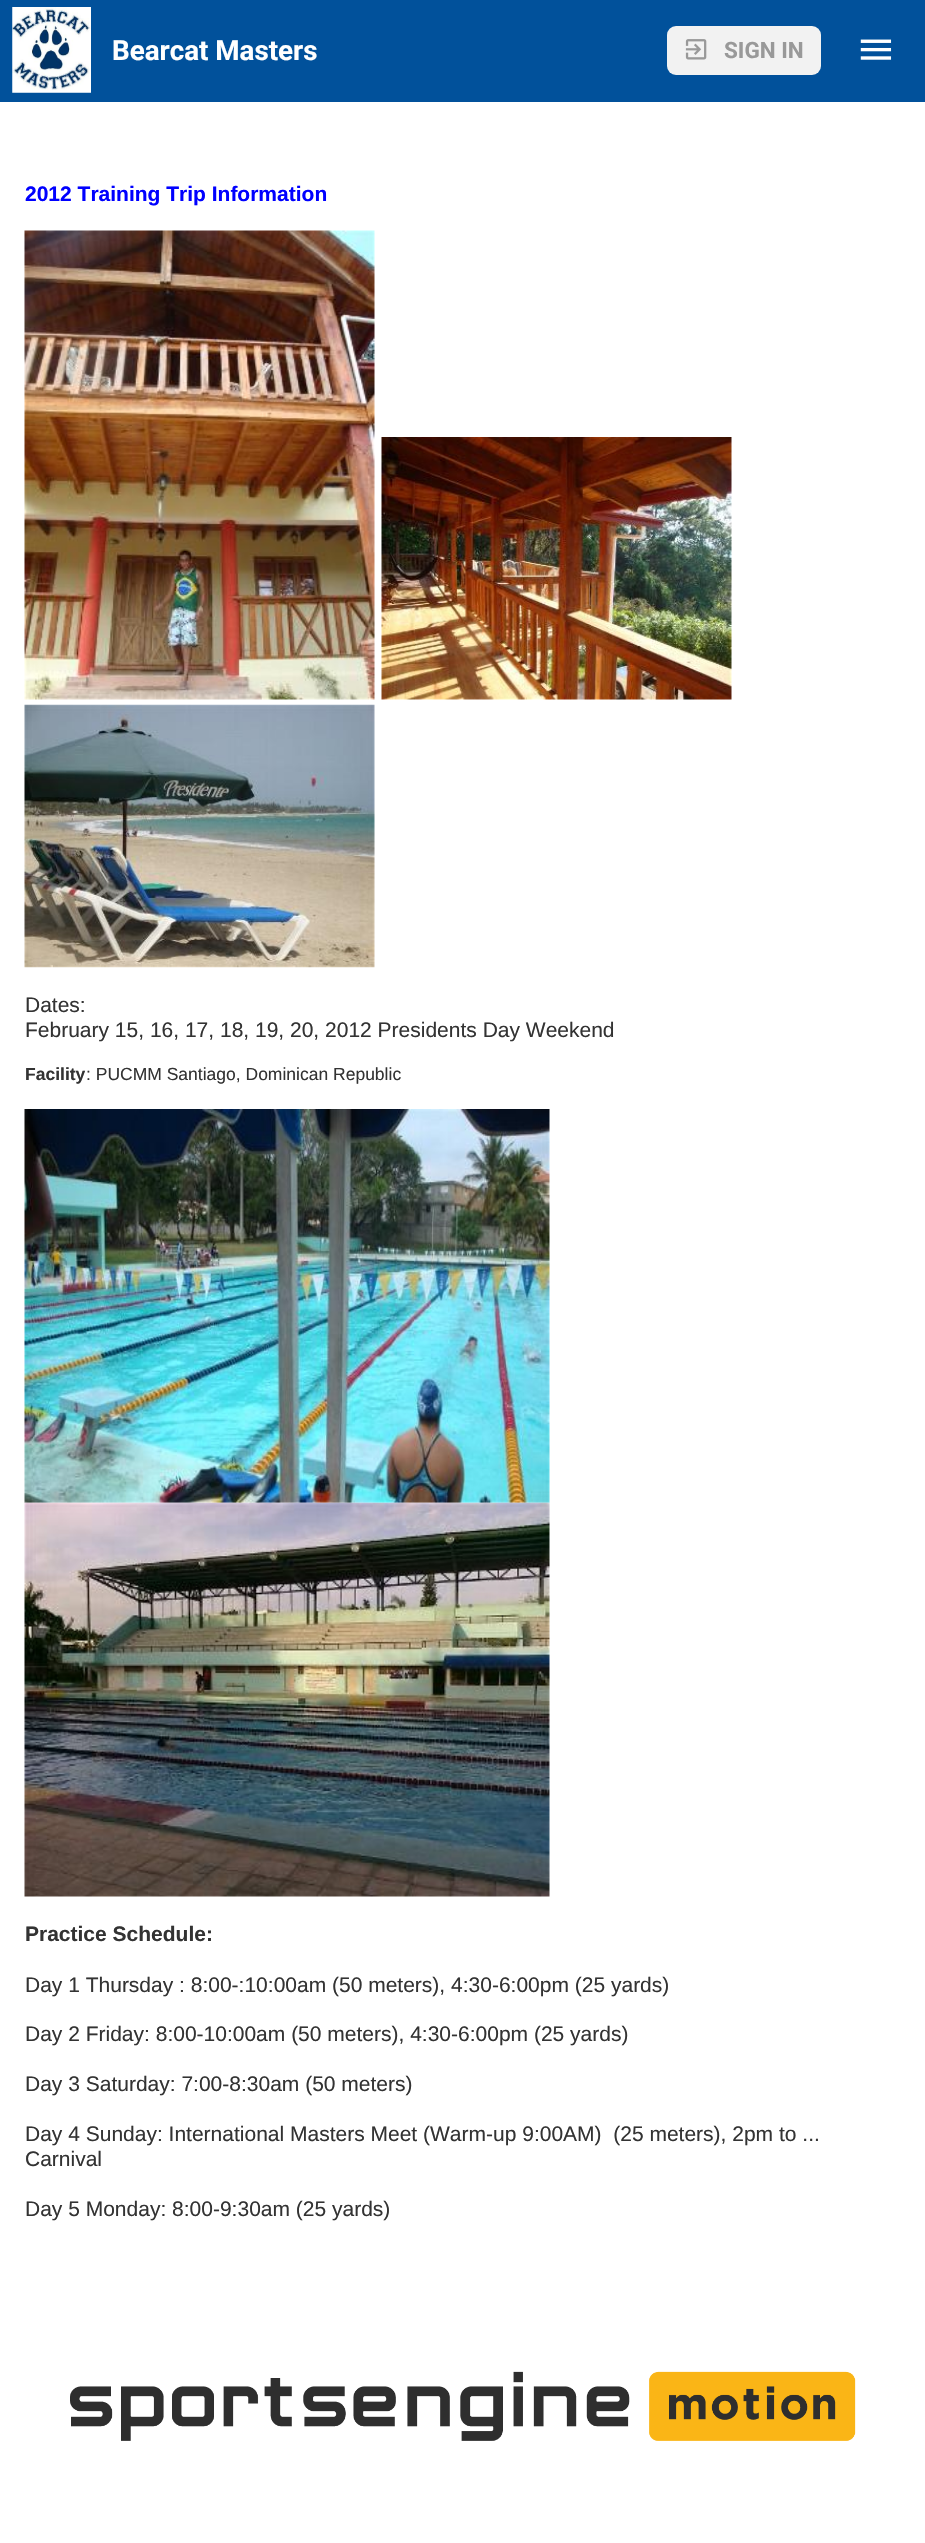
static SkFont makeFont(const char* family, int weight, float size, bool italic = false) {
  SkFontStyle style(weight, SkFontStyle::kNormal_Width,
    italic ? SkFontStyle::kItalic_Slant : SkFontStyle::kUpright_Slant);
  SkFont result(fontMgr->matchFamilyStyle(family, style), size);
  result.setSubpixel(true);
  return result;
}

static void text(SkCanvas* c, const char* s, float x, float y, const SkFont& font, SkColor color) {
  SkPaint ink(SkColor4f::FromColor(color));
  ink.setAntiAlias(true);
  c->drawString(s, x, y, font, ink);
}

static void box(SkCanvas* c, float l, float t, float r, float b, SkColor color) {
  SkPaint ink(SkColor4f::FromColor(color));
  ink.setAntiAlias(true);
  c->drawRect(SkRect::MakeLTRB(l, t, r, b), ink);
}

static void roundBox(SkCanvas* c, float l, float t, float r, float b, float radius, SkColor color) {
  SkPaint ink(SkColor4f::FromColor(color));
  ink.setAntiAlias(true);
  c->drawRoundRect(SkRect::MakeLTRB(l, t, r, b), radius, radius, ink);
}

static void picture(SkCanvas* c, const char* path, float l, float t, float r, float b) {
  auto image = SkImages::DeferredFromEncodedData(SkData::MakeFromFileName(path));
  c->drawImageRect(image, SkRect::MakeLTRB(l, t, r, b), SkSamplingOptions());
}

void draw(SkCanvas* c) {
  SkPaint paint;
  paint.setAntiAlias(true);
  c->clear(0xffffffff);
  box(c, 0, 0, 925, 102, 0xff01519b);
  picture(c, "img_01.png", 12, 7, 91, 93);
  SkFont face1 = makeFont("Roboto", 700, 27.75f);
  text(c, "Bearcat Masters", 112, 60, face1, 0xffffffff);
  roundBox(c, 667, 26, 821, 75, 9, 0xfff2f2f2);
  picture(c, "img_02.png", 685, 39, 707, 60);
  SkFont face2 = makeFont("Roboto", 700, 22.5f);
  text(c, "SIGN IN", 724, 58, face2, 0xff999999);
  picture(c, "img_03.png", 860, 39, 892, 60);
  SkFont face3 = makeFont("Liberation Sans", 700, 21);
  text(c, "2012 Training Trip Information", 25, 201, face3, 0xff0000ff);
  picture(c, "img_04.png", 24, 230, 375, 700);
  picture(c, "img_05.png", 381, 437, 732, 700);
  picture(c, "img_06.png", 24, 704, 375, 968);
  SkFont face4 = makeFont("Liberation Sans", 400, 21);
  text(c, "Dates:", 25, 1012, face4, 0xff333333);
  text(c, "February 15, 16, 17, 18, 19, 20, 2012 Presidents Day Weekend", 25, 1037, face4, 0xff333333);
  SkFont face5 = makeFont("Liberation Sans", 700, 17.5f);
  text(c, "Facility", 25, 1080, face5, 0xff333333);
  SkFont face6 = makeFont("Liberation Sans", 400, 17.5f);
  text(c, ": PUCMM Santiago, Dominican Republic", 86, 1080, face6, 0xff333333);
  picture(c, "img_07.png", 24, 1109, 550, 1503);
  picture(c, "img_08.png", 24, 1502, 550, 1897);
  text(c, "Practice Schedule:", 25, 1941, face3, 0xff333333);
  text(c, "Day 1 Thursday : 8:00-:10:00am (50 meters), 4:30-6:00pm (25 yards)", 25, 1992, face4, 0xff333333);
  text(c, "Day 2 Friday: 8:00-10:00am (50 meters), 4:30-6:00pm (25 yards)", 25, 2041, face4, 0xff333333);
  text(c, "Day 3 Saturday: 7:00-8:30am (50 meters)", 25, 2091, face4, 0xff333333);
  text(c, "Day 4 Sunday: International Masters Meet (Warm-up 9:00AM)  (25 meters), 2pm to ...", 25, 2141, face4, 0xff333333);
  text(c, "Carnival", 25, 2166, face4, 0xff333333);
  text(c, "Day 5 Monday: 8:00-9:30am (25 yards)", 25, 2216, face4, 0xff333333);
  picture(c, "img_09.png", 70, 2371, 856, 2441);
}
